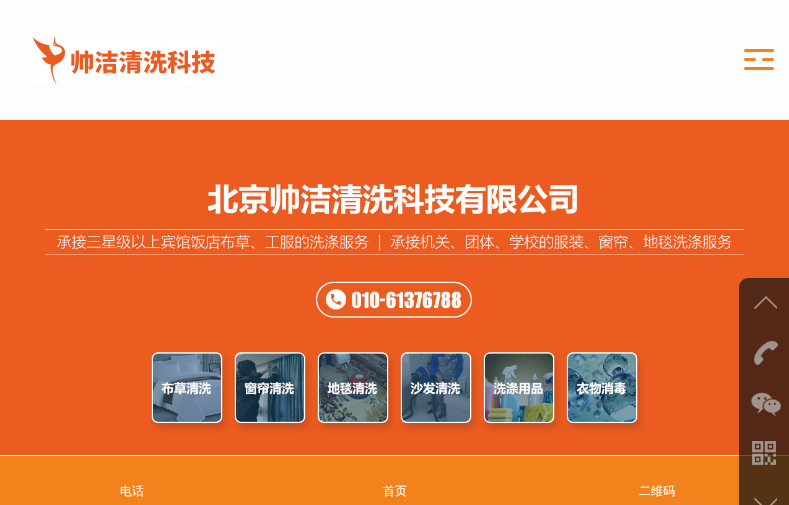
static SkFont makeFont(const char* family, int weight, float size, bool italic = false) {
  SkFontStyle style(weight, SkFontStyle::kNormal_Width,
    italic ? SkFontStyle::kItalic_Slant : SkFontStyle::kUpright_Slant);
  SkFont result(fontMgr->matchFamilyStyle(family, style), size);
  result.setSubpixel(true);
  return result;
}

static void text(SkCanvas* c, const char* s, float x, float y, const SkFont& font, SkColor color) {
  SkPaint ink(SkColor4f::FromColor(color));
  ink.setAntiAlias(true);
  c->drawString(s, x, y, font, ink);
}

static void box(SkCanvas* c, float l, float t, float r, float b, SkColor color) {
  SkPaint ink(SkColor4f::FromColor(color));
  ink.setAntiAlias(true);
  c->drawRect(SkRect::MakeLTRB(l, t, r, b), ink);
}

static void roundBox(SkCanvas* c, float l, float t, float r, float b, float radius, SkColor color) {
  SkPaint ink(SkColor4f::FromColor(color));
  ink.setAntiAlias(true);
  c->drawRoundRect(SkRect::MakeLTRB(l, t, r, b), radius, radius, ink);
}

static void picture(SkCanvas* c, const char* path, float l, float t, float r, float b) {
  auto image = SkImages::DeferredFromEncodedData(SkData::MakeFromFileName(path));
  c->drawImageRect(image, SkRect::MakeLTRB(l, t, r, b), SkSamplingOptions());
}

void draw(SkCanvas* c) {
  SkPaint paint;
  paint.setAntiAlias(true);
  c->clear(0xffffffff);
  box(c, 0, 0, 789, 120, 0xfffcfdfd);
  picture(c, "img_01.png", 33, 36, 216, 84);
  roundBox(c, 744, 49, 774, 52, 1.5f, 0xfff2821c);
  roundBox(c, 744, 58, 756, 61, 1.5f, 0xfff2821c);
  roundBox(c, 762, 58, 774, 61, 1.5f, 0xfff2821c);
  roundBox(c, 744, 67, 774, 70, 1.5f, 0xfff2821c);
  picture(c, "img_02.png", 0, 120, 789, 455);
  box(c, 0, 456, 789, 505, 0xfff2821c);
  SkFont face1 = makeFont("WenQuanYi Zen Hei", 500, 12);
  text(c, "电话", 120, 495, face1, 0xffffffff);
  text(c, "首页", 383, 495, face1, 0xffffffff);
  text(c, "二维码", 639, 495, face1, 0xffffffff);
  paint.setColor(0xb3111111);
  c->drawPath(SkPathBuilder().moveTo(749, 278).lineTo(789, 278).lineTo(789, 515).lineTo(749, 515).cubicTo(743.5f, 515, 739, 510.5f, 739, 505).lineTo(739, 288).cubicTo(739, 282.5f, 743.5f, 278, 749, 278).close().detach(), paint);
  paint.setColor(0xb3333333);
  c->drawPath(SkPathBuilder(SkPathFillType::kEvenOdd).moveTo(749, 278).lineTo(789, 278).lineTo(789, 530).lineTo(749, 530).cubicTo(743, 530, 739, 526, 739, 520).lineTo(739, 288).cubicTo(739, 282, 743, 278, 749, 278).close().moveTo(749, 279).lineTo(789, 279).lineTo(789, 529).lineTo(749, 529).cubicTo(744, 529, 740, 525, 740, 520).lineTo(740, 288).cubicTo(740, 283, 744, 279, 749, 279).close().detach(), paint);
  picture(c, "img_03.png", 754, 296, 777, 309);
  picture(c, "img_04.png", 754, 341, 778, 365);
  picture(c, "img_05.png", 751, 392, 781, 417);
  picture(c, "img_06.png", 752, 441, 776, 465);
  picture(c, "img_07.png", 754, 498, 777, 505);
}
